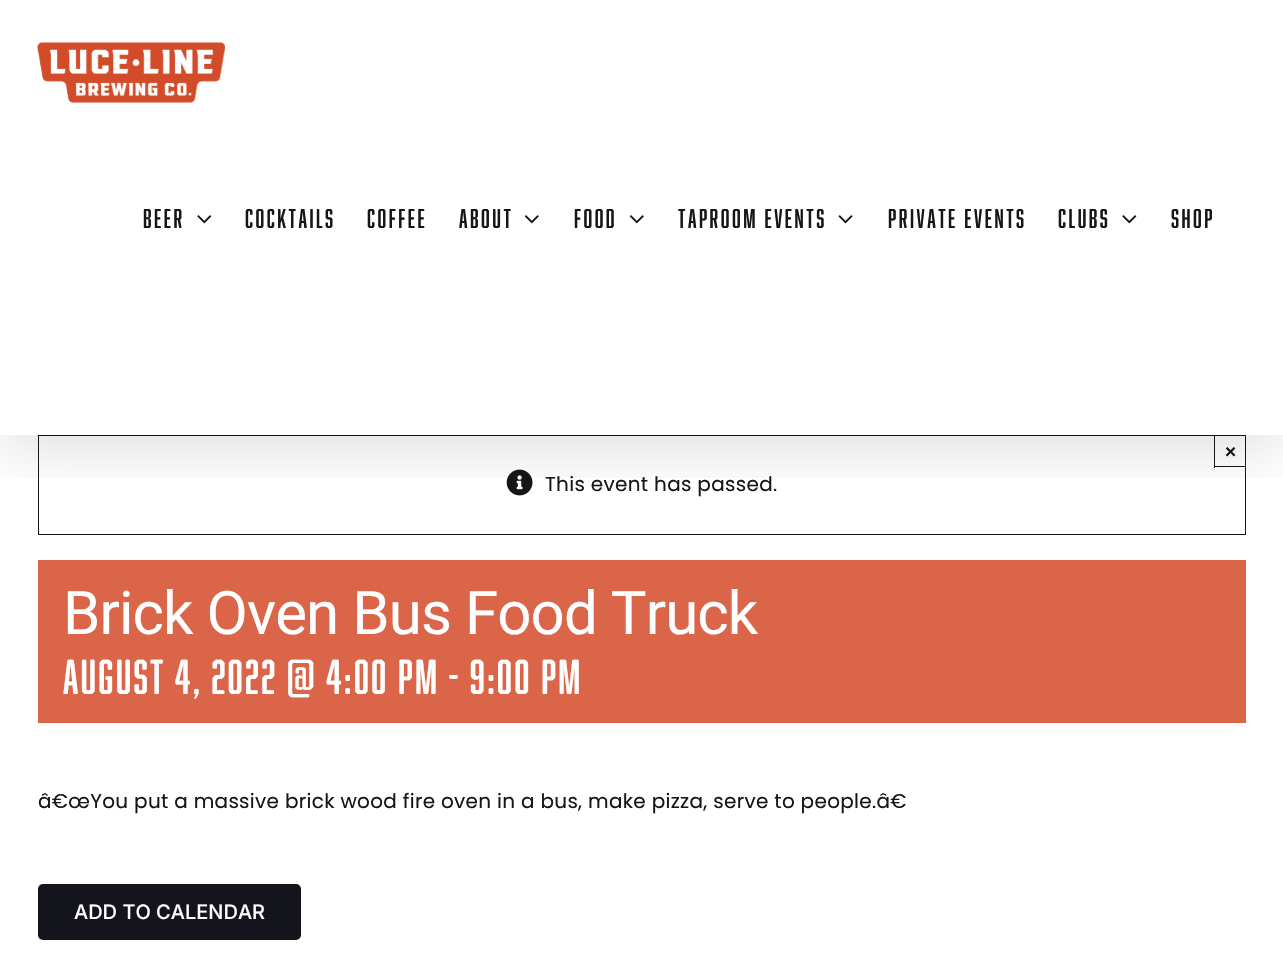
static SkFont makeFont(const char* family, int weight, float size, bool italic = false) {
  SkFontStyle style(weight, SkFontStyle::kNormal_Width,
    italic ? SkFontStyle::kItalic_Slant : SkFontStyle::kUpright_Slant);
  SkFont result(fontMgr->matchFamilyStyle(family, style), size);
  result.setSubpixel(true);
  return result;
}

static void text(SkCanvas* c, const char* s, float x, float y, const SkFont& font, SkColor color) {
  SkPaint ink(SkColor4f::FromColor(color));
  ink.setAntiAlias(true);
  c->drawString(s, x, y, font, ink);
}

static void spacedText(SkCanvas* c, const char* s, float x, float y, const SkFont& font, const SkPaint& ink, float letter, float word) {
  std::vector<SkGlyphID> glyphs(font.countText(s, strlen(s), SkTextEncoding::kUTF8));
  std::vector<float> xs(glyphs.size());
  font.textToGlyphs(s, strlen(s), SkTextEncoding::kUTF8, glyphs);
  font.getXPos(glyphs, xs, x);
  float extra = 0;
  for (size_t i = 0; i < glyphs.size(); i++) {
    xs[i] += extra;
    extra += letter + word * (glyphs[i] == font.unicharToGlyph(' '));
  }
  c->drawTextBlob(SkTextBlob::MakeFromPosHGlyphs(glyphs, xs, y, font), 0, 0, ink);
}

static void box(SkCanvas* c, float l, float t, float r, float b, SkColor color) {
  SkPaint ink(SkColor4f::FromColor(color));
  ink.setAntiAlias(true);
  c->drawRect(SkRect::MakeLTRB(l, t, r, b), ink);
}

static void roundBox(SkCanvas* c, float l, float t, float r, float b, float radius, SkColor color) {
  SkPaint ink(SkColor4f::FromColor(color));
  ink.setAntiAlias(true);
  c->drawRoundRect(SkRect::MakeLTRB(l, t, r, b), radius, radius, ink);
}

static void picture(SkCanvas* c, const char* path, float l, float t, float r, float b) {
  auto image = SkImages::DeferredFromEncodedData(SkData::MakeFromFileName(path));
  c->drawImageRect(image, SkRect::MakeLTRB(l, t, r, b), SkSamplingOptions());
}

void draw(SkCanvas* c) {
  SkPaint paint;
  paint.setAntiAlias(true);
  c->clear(0xffffffff);
  paint.setStyle(SkPaint::kStroke_Style);
  paint.setStrokeWidth(1);
  paint.setColor(0xff141617);
  c->drawRect(SkRect::MakeLTRB(38.5f, 435.5f, 1245.5f, 534.5f), paint);
  box(c, 1214, 466, 1246, 467, 0xff141617);
  box(c, 1214, 435, 1215, 468, 0xff141617);
  picture(c, "img_05.png", 506, 469, 533, 496);
  c->save();
  c->clipRect(SkRect::MakeLTRB(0, 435, 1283, 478));
  paint.setStyle(SkPaint::kFill_Style);
  paint.setColor(0x24000000);
  paint.setMaskFilter(SkMaskFilter::MakeBlur(kNormal_SkBlurStyle, 31));
  c->drawRect(SkRect::MakeLTRB(3, 15, 1281, 445), paint);
  paint.setMaskFilter(nullptr);
  c->restore();
  picture(c, "img_01.png", 37, 42, 225, 103);
  SkFont face1 = makeFont("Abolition", 400, 25);
  paint.setColor(0xff141617);
  spacedText(c, "BEER", 143, 228, face1, paint, 2.5f, 0);
  picture(c, "img_02.png", 197, 215, 212, 224);
  spacedText(c, "COCKTAILS", 245, 228, face1, paint, 2.5f, 0);
  spacedText(c, "COFFEE", 367, 228, face1, paint, 2.5f, 0);
  spacedText(c, "ABOUT", 459, 228, face1, paint, 2.5f, 0);
  picture(c, "img_03.png", 524, 215, 539, 224);
  spacedText(c, "FOOD", 574, 228, face1, paint, 2.5f, 0);
  picture(c, "img_03.png", 629, 215, 644, 224);
  spacedText(c, "TAPROOM EVENTS", 678, 228, face1, paint, 2.5f, 0);
  picture(c, "img_04.png", 838, 215, 853, 224);
  spacedText(c, "PRIVATE EVENTS", 888, 228, face1, paint, 2.5f, 0);
  spacedText(c, "CLUBS", 1058, 228, face1, paint, 2.5f, 0);
  picture(c, "img_02.png", 1122, 215, 1137, 224);
  spacedText(c, "SHOP", 1171, 228, face1, paint, 2.5f, 0);
  SkFont face2 = makeFont("Liberation Sans", 700, 19);
  text(c, "×", 1225, 458, face2, 0xff141617);
  SkFont face3 = makeFont("Poppins", 400, 20);
  spacedText(c, "This event has passed.", 545, 491, face3, paint, 0.3f, 0);
  box(c, 38, 560, 1246, 723, 0xffdb6548);
  SkFont face4 = makeFont("Roboto", 400, 60);
  paint.setColor(0xffffffff);
  spacedText(c, "Brick Oven Bus Food Truck", 63, 634, face4, paint, -0.9f, 0);
  SkFont face5 = makeFont("Abolition", 400, 45);
  spacedText(c, "August 4, 2022 @ 4:00 pm - 9:00 pm", 63, 694, face5, paint, 2.25f, 0);
  paint.setColor(0xff141617);
  spacedText(c, "â€œYou put a massive brick wood fire oven in a bus, make pizza, serve to people.â€", 38, 808, face3, paint, 0.3f, 0);
  roundBox(c, 38, 884, 301, 940, 5, 0xff14141c);
  SkFont face6 = makeFont("Inter", 500, 20);
  text(c, "ADD TO CALENDAR", 74, 919, face6, 0xffffffff);
}
